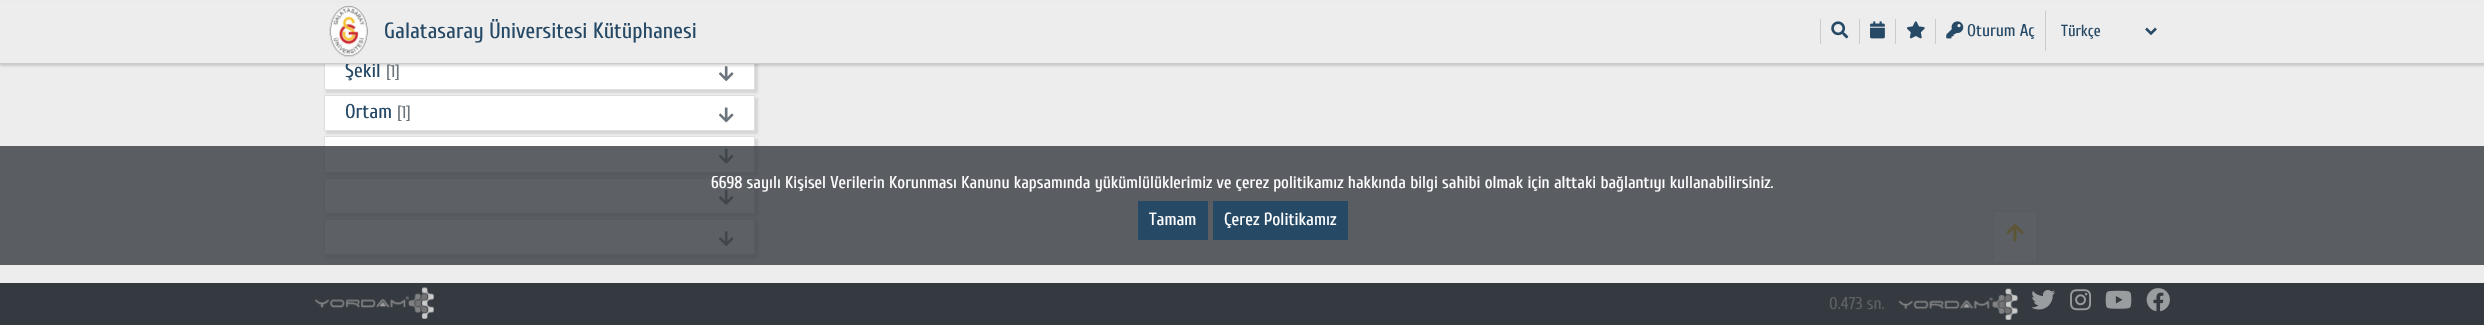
static SkFont makeFont(const char* family, int weight, float size, bool italic = false) {
  SkFontStyle style(weight, SkFontStyle::kNormal_Width,
    italic ? SkFontStyle::kItalic_Slant : SkFontStyle::kUpright_Slant);
  SkFont result(fontMgr->matchFamilyStyle(family, style), size);
  result.setSubpixel(true);
  return result;
}

static void text(SkCanvas* c, const char* s, float x, float y, const SkFont& font, SkColor color) {
  SkPaint ink(SkColor4f::FromColor(color));
  ink.setAntiAlias(true);
  c->drawString(s, x, y, font, ink);
}

static void box(SkCanvas* c, float l, float t, float r, float b, SkColor color) {
  SkPaint ink(SkColor4f::FromColor(color));
  ink.setAntiAlias(true);
  c->drawRect(SkRect::MakeLTRB(l, t, r, b), ink);
}

static void picture(SkCanvas* c, const char* path, float l, float t, float r, float b) {
  auto image = SkImages::DeferredFromEncodedData(SkData::MakeFromFileName(path));
  c->drawImageRect(image, SkRect::MakeLTRB(l, t, r, b), SkSamplingOptions());
}

void draw(SkCanvas* c) {
  SkPaint paint;
  paint.setAntiAlias(true);
  c->clear(0xffededed);
  paint.setColor(0x1a000000);
  paint.setMaskFilter(SkMaskFilter::MakeBlur(kNormal_SkBlurStyle, 1));
  c->drawRect(SkRect::MakeLTRB(326, 56, 758, 93), paint);
  paint.setMaskFilter(nullptr);
  box(c, 325, 64, 754, 89, 0xffffffff);
  paint.setStyle(SkPaint::kStroke_Style);
  paint.setStrokeWidth(1);
  paint.setColor(0xffdfdfdf);
  c->drawRect(SkRect::MakeLTRB(324.5f, 54.5f, 754.5f, 89.5f), paint);
  picture(c, "img_06.png", 719, 66, 734, 81);
  paint.setStyle(SkPaint::kFill_Style);
  paint.setColor(0x26000000);
  paint.setMaskFilter(SkMaskFilter::MakeBlur(kNormal_SkBlurStyle, 1));
  c->drawRect(SkRect::MakeLTRB(0, 3, 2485, 66), paint);
  paint.setMaskFilter(nullptr);
  SkFont face1 = makeFont("Cuprum", 400, 20);
  text(c, "Şekil", 345, 77, face1, 0xff264966);
  box(c, 0, 2, 2484, 63, 0xffededed);
  box(c, 0, 63, 760, 64, 0xffcccccc);
  picture(c, "img_01.png", 329, 6, 368, 57);
  SkFont face2 = makeFont("Cuprum", 400, 22);
  text(c, "Galatasaray Üniversitesi Kütüphanesi", 384, 38, face2, 0xff264966);
  box(c, 1820, 19, 1821, 44, 0xffcccccc);
  picture(c, "img_02.png", 1831, 21, 1849, 39);
  box(c, 1859, 19, 1860, 44, 0xffcccccc);
  picture(c, "img_03.png", 1870, 21, 1885, 39);
  box(c, 1895, 19, 1896, 44, 0xffcccccc);
  picture(c, "img_04.png", 1907, 21, 1925, 39);
  box(c, 1935, 19, 1936, 44, 0xffcccccc);
  picture(c, "img_05.png", 1946, 21, 1964, 39);
  SkFont face3 = makeFont("Cuprum", 400, 17);
  text(c, "Oturum Aç", 1967, 36, face3, 0xff264966);
  box(c, 2045, 11, 2046, 51, 0xffcccccc);
  paint.setStyle(SkPaint::kStroke_Style);
  paint.setStrokeWidth(2.5f);
  paint.setColor(0xff264966);
  c->drawPath(SkPathBuilder().moveTo(2146, 28.5f).lineTo(2151, 33.5f).lineTo(2156, 28.5f).detach(), paint);
  SkFont face4 = makeFont("Cuprum", 400, 16);
  text(c, "Türkçe", 2061, 36, face4, 0xff264966);
  text(c, "[1]", 386, 77, face3, 0xff6c757d);
  paint.setStyle(SkPaint::kFill_Style);
  paint.setColor(0x1a000000);
  paint.setMaskFilter(SkMaskFilter::MakeBlur(kNormal_SkBlurStyle, 1));
  c->drawRect(SkRect::MakeLTRB(326, 98, 758, 134), paint);
  paint.setMaskFilter(nullptr);
  paint.setColor(0xffffffff);
  c->drawRect(SkRect::MakeLTRB(324.5f, 95.5f, 754.5f, 130.5f), paint);
  paint.setStyle(SkPaint::kStroke_Style);
  paint.setStrokeWidth(1);
  paint.setColor(0xffdfdfdf);
  c->drawRect(SkRect::MakeLTRB(324.5f, 95.5f, 754.5f, 130.5f), paint);
  text(c, "Ortam", 345, 118, face1, 0xff264966);
  text(c, "[1]", 397, 118, face3, 0xff6c757d);
  picture(c, "img_07.png", 719, 107, 734, 123);
  paint.setStyle(SkPaint::kFill_Style);
  paint.setColor(0x1a000000);
  paint.setMaskFilter(SkMaskFilter::MakeBlur(kNormal_SkBlurStyle, 1));
  c->drawRect(SkRect::MakeLTRB(326, 139, 758, 175), paint);
  paint.setMaskFilter(nullptr);
  paint.setColor(0xffffffff);
  c->drawRect(SkRect::MakeLTRB(324.5f, 136.5f, 754.5f, 172.5f), paint);
  paint.setStyle(SkPaint::kStroke_Style);
  paint.setColor(0xffdfdfdf);
  c->drawRect(SkRect::MakeLTRB(324.5f, 136.5f, 754.5f, 172.5f), paint);
  picture(c, "img_08.png", 719, 148, 734, 164);
  paint.setStyle(SkPaint::kFill_Style);
  paint.setColor(0x1a000000);
  paint.setMaskFilter(SkMaskFilter::MakeBlur(kNormal_SkBlurStyle, 1));
  c->drawRect(SkRect::MakeLTRB(326, 180, 758, 216), paint);
  paint.setMaskFilter(nullptr);
  paint.setColor(0xffffffff);
  c->drawRect(SkRect::MakeLTRB(324.5f, 178.5f, 754.5f, 213.5f), paint);
  paint.setStyle(SkPaint::kStroke_Style);
  paint.setColor(0xffdfdfdf);
  c->drawRect(SkRect::MakeLTRB(324.5f, 178.5f, 754.5f, 213.5f), paint);
  picture(c, "img_09.png", 719, 189, 734, 205);
  paint.setStyle(SkPaint::kFill_Style);
  paint.setColor(0x1a000000);
  paint.setMaskFilter(SkMaskFilter::MakeBlur(kNormal_SkBlurStyle, 1));
  c->drawRect(SkRect::MakeLTRB(326, 221, 758, 258), paint);
  paint.setMaskFilter(nullptr);
  paint.setColor(0xffffffff);
  c->drawRect(SkRect::MakeLTRB(324.5f, 219.5f, 754.5f, 254.5f), paint);
  paint.setStyle(SkPaint::kStroke_Style);
  paint.setColor(0xffdfdfdf);
  c->drawRect(SkRect::MakeLTRB(324.5f, 219.5f, 754.5f, 254.5f), paint);
  picture(c, "img_06.png", 719, 231, 734, 246);
  paint.setStyle(SkPaint::kFill_Style);
  paint.setColor(0xfff6f6f6);
  c->drawRect(SkRect::MakeLTRB(1993.5f, 211.5f, 2037.5f, 262.5f), paint);
  paint.setStyle(SkPaint::kStroke_Style);
  paint.setColor(0xffdddddd);
  c->drawRect(SkRect::MakeLTRB(1993.5f, 211.5f, 2037.5f, 262.5f), paint);
  picture(c, "img_10.png", 2006, 223, 2024, 242);
  box(c, 0, 146, 2484, 265, 0xcc343a40);
  text(c, "6698 sayılı Kişisel Verilerin Korunması Kanunu kapsamında yükümlülüklerimiz ve çerez politikamız hakkında bilgi sahibi olmak için alttaki bağlantıyı kullanabilirsiniz.", 711, 188, face3, 0xffffffff);
  box(c, 1138, 201, 1208, 240, 0xff264966);
  SkFont face5 = makeFont("Cuprum", 400, 17.5f);
  text(c, "Tamam", 1149, 225, face5, 0xffffffff);
  box(c, 1213, 201, 1348, 240, 0xff264966);
  text(c, "Çerez Politikamız", 1224, 225, face5, 0xffffffff);
  box(c, 0, 283, 2484, 325, 0xff343a40);
  picture(c, "img_11.png", 315, 287, 434, 319);
  text(c, "0.473 sn.", 1829, 309, face3, 0xff5d6166);
  picture(c, "img_12.png", 1898, 288, 2018, 320);
  picture(c, "img_13.png", 2031, 290, 2055, 310);
  picture(c, "img_14.png", 2070, 289, 2092, 311);
  picture(c, "img_15.png", 2105, 290, 2132, 309);
  picture(c, "img_16.png", 2146, 288, 2170, 312);
}
